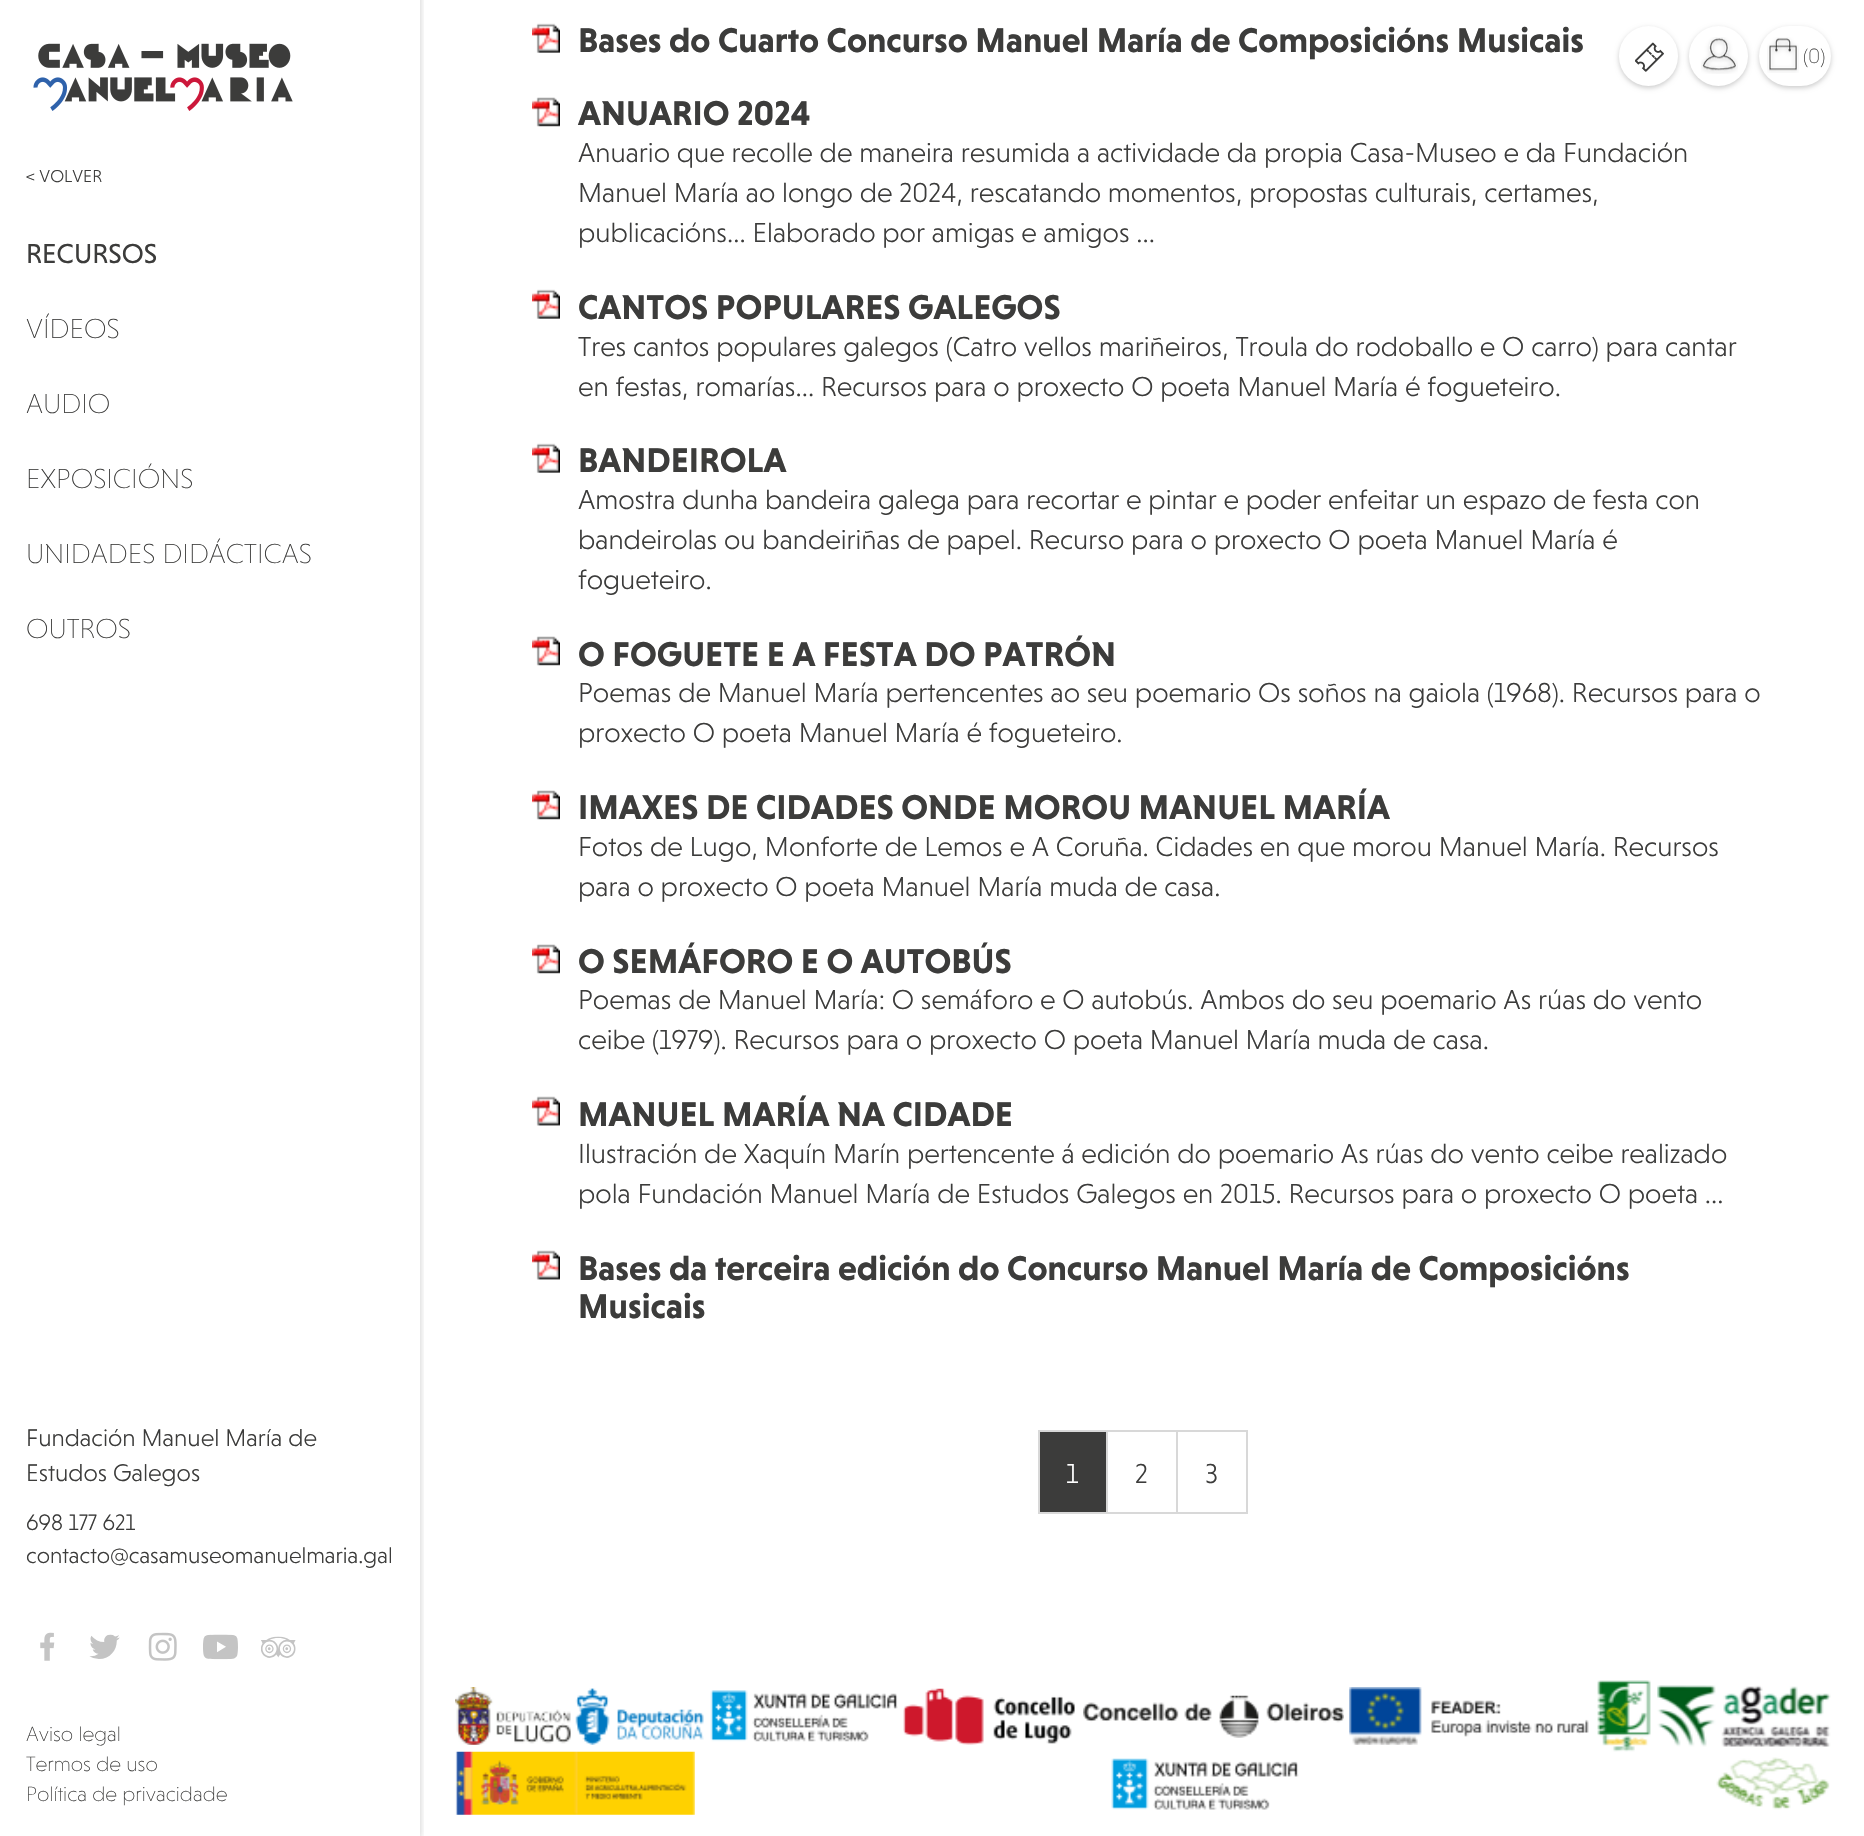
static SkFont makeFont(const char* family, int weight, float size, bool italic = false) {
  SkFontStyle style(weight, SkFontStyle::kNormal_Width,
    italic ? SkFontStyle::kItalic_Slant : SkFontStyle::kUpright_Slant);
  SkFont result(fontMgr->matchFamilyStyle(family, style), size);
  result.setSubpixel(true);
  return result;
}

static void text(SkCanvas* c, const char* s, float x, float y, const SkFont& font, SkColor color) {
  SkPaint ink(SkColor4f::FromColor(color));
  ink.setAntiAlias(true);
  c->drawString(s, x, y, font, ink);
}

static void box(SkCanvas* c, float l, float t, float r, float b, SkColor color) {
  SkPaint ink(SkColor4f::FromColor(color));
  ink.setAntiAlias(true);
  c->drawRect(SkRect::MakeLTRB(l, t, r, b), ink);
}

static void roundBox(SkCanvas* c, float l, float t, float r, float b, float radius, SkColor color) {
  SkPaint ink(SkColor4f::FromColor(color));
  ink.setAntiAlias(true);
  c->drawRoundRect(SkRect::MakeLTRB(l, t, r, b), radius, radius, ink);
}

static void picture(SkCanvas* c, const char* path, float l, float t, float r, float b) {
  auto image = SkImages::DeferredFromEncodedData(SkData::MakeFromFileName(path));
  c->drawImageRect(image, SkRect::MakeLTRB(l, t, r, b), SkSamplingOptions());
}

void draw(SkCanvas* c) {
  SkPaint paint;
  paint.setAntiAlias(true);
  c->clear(0xffffffff);
  picture(c, "img_01.png", 532, 23, 560, 53);
  SkFont face1 = makeFont("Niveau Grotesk", 700, 35);
  text(c, "Bases do Cuarto Concurso Manuel María de Composicións Musicais", 578, 52, face1, 0xff3c3c3b);
  picture(c, "img_02.png", 532, 97, 560, 127);
  text(c, "ANUARIO 2024", 578, 125, face1, 0xff3c3c3b);
  SkFont face2 = makeFont("Niveau Grotesk", 300, 28);
  text(c, "Anuario que recolle de maneira resumida a actividade da propia Casa-Museo e da Fundación", 578, 162, face2, 0xff3c3c3b);
  text(c, "Manuel María ao longo de 2024, rescatando momentos, propostas culturais, certames,", 578, 202, face2, 0xff3c3c3b);
  text(c, "publicacións... Elaborado por amigas e amigos ...", 578, 242, face2, 0xff3c3c3b);
  picture(c, "img_01.png", 532, 289, 560, 319);
  text(c, "CANTOS POPULARES GALEGOS", 578, 319, face1, 0xff3c3c3b);
  text(c, "Tres cantos populares galegos (Catro vellos mariñeiros, Troula do rodoballo e O carro) para cantar", 578, 356, face2, 0xff3c3c3b);
  text(c, "en festas, romarías... Recursos para o proxecto O poeta Manuel María é fogueteiro.", 578, 396, face2, 0xff3c3c3b);
  picture(c, "img_01.png", 532, 443, 560, 473);
  text(c, "BANDEIROLA", 578, 472, face1, 0xff3c3c3b);
  text(c, "Amostra dunha bandeira galega para recortar e pintar e poder enfeitar un espazo de festa con", 578, 509, face2, 0xff3c3c3b);
  text(c, "bandeirolas ou bandeiriñas de papel. Recurso para o proxecto O poeta Manuel María é", 578, 549, face2, 0xff3c3c3b);
  text(c, "fogueteiro.", 578, 589, face2, 0xff3c3c3b);
  picture(c, "img_02.png", 532, 636, 560, 666);
  text(c, "O FOGUETE E A FESTA DO PATRÓN", 578, 666, face1, 0xff3c3c3b);
  text(c, "Poemas de Manuel María pertencentes ao seu poemario Os soños na gaiola (1968). Recursos para o", 578, 702, face2, 0xff3c3c3b);
  text(c, "proxecto O poeta Manuel María é fogueteiro.", 578, 742, face2, 0xff3c3c3b);
  picture(c, "img_02.png", 532, 790, 560, 820);
  text(c, "IMAXES DE CIDADES ONDE MOROU MANUEL MARÍA", 578, 819, face1, 0xff3c3c3b);
  text(c, "Fotos de Lugo, Monforte de Lemos e A Coruña. Cidades en que morou Manuel María. Recursos", 578, 856, face2, 0xff3c3c3b);
  text(c, "para o proxecto O poeta Manuel María muda de casa.", 578, 896, face2, 0xff3c3c3b);
  picture(c, "img_02.png", 532, 944, 560, 974);
  text(c, "O SEMÁFORO E O AUTOBÚS", 578, 973, face1, 0xff3c3c3b);
  text(c, "Poemas de Manuel María: O semáforo e O autobús. Ambos do seu poemario As rúas do vento", 578, 1009, face2, 0xff3c3c3b);
  text(c, "ceibe (1979). Recursos para o proxecto O poeta Manuel María muda de casa.", 578, 1049, face2, 0xff3c3c3b);
  picture(c, "img_03.png", 532, 1096, 560, 1126);
  text(c, "MANUEL MARÍA NA CIDADE", 578, 1126, face1, 0xff3c3c3b);
  text(c, "Ilustración de Xaquín Marín pertencente á edición do poemario As rúas do vento ceibe realizado", 578, 1163, face2, 0xff3c3c3b);
  text(c, "pola Fundación Manuel María de Estudos Galegos en 2015. Recursos para o proxecto O poeta ...", 578, 1203, face2, 0xff3c3c3b);
  picture(c, "img_03.png", 532, 1250, 560, 1280);
  text(c, "Bases da terceira edición do Concurso Manuel María de Composicións", 578, 1280, face1, 0xff3c3c3b);
  text(c, "Musicais", 578, 1318, face1, 0xff3c3c3b);
  paint.setColor(0xff3c3c3b);
  c->drawRect(SkRect::MakeLTRB(1039, 1431, 1107, 1513), paint);
  paint.setStyle(SkPaint::kStroke_Style);
  paint.setStrokeWidth(2);
  paint.setColor(0xffd8d8d8);
  c->drawRect(SkRect::MakeLTRB(1039, 1431, 1107, 1513), paint);
  text(c, "1", 1066, 1483, face2, 0xffffffff);
  box(c, 1108, 1430, 1248, 1432, 0xffd8d8d8);
  box(c, 1176, 1430, 1178, 1514, 0xffd8d8d8);
  box(c, 1108, 1512, 1178, 1514, 0xffd8d8d8);
  text(c, "2", 1135, 1483, face2, 0xff3c3c3b);
  box(c, 1246, 1430, 1248, 1514, 0xffd8d8d8);
  box(c, 1178, 1512, 1248, 1514, 0xffd8d8d8);
  text(c, "3", 1205, 1483, face2, 0xff3c3c3b);
  picture(c, "img_04.png", 455, 1687, 571, 1745);
  picture(c, "img_05.png", 575, 1688, 704, 1745);
  picture(c, "img_06.png", 710, 1690, 898, 1742);
  picture(c, "img_07.png", 903, 1688, 1075, 1745);
  picture(c, "img_08.png", 1083, 1695, 1344, 1738);
  picture(c, "img_09.png", 1349, 1687, 1589, 1745);
  picture(c, "img_10.png", 1597, 1680, 1651, 1752);
  picture(c, "img_11.png", 1657, 1685, 1831, 1747);
  picture(c, "img_12.png", 455, 1751, 695, 1815);
  picture(c, "img_13.png", 1111, 1758, 1299, 1810);
  picture(c, "img_14.png", 1716, 1757, 1830, 1810);
  paint.setStyle(SkPaint::kFill_Style);
  paint.setColor(0x33000000);
  paint.setMaskFilter(SkMaskFilter::MakeBlur(kNormal_SkBlurStyle, 2.5f));
  c->drawRoundRect(SkRect::MakeLTRB(1619, 28, 1678, 88), 29.5f, 29.5f, paint);
  paint.setMaskFilter(nullptr);
  roundBox(c, 1619, 26, 1678, 86, 29.5f, 0xffffffff);
  picture(c, "img_15.png", 1635, 42, 1664, 72);
  paint.setMaskFilter(SkMaskFilter::MakeBlur(kNormal_SkBlurStyle, 2.5f));
  c->drawRoundRect(SkRect::MakeLTRB(1689, 28, 1748, 88), 29.5f, 29.5f, paint);
  paint.setMaskFilter(nullptr);
  roundBox(c, 1689, 26, 1748, 86, 29.5f, 0xffffffff);
  picture(c, "img_16.png", 1701, 37, 1738, 74);
  paint.setMaskFilter(SkMaskFilter::MakeBlur(kNormal_SkBlurStyle, 2.5f));
  c->drawRoundRect(SkRect::MakeLTRB(1759, 28, 1831, 88), 30, 30, paint);
  paint.setMaskFilter(nullptr);
  roundBox(c, 1759, 26, 1831, 86, 30, 0xffffffff);
  picture(c, "img_17.png", 1767, 37, 1799, 73);
  SkFont face3 = makeFont("Niveau Grotesk", 200, 21);
  text(c, "(0)", 1803, 63, face3, 0xff3c3c3b);
  c->save();
  c->clipRect(SkRect::MakeLTRB(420, 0, 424, 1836));
  paint.setMaskFilter(SkMaskFilter::MakeBlur(kNormal_SkBlurStyle, 3.5f));
  c->drawRect(SkRect::MakeLTRB(0, -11, 420, 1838), paint);
  paint.setMaskFilter(nullptr);
  c->restore();
  picture(c, "img_18.png", 33, 43, 293, 111);
  SkFont face4 = makeFont("Niveau Grotesk", 300, 17.5f);
  text(c, "< VOLVER", 26, 182, face4, 0xff3c3c3b);
  SkFont face5 = makeFont("Niveau Grotesk", 400, 28);
  text(c, "RECURSOS", 26, 263, face5, 0xff3c3c3b);
  SkFont face6 = makeFont("Niveau Grotesk", 200, 28);
  text(c, "VÍDEOS", 26, 338, face6, 0xff3c3c3b);
  text(c, "AUDIO", 26, 413, face6, 0xff3c3c3b);
  text(c, "EXPOSICIÓNS", 26, 488, face6, 0xff3c3c3b);
  text(c, "UNIDADES DIDÁCTICAS", 26, 563, face6, 0xff3c3c3b);
  text(c, "OUTROS", 26, 638, face6, 0xff3c3c3b);
  SkFont face7 = makeFont("Niveau Grotesk", 300, 24.5f);
  text(c, "Fundación Manuel María de", 26, 1446, face7, 0xff3c3c3b);
  text(c, "Estudos Galegos", 26, 1481, face7, 0xff3c3c3b);
  SkFont face8 = makeFont("Niveau Grotesk", 300, 22.75f);
  text(c, "698 177 621", 26, 1530, face8, 0xff3c3c3b);
  text(c, "contacto@casamuseomanuelmaria.gal", 26, 1563, face8, 0xff3c3c3b);
  picture(c, "img_19.png", 40, 1632, 55, 1661);
  picture(c, "img_20.png", 89, 1634, 120, 1659);
  picture(c, "img_21.png", 148, 1632, 177, 1661);
  picture(c, "img_22.png", 203, 1634, 238, 1660);
  picture(c, "img_23.png", 261, 1636, 296, 1658);
  text(c, "Aviso legal", 26, 1741, face3, 0xff3c3c3b);
  text(c, "Termos de uso", 26, 1771, face3, 0xff3c3c3b);
  text(c, "Política de privacidade", 26, 1801, face3, 0xff3c3c3b);
}
